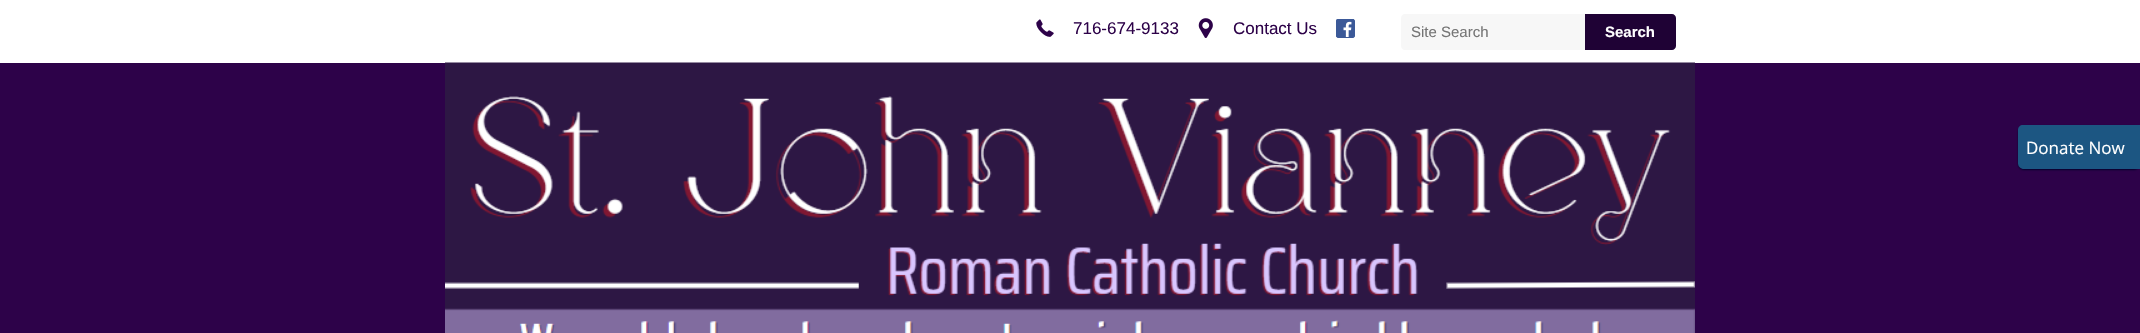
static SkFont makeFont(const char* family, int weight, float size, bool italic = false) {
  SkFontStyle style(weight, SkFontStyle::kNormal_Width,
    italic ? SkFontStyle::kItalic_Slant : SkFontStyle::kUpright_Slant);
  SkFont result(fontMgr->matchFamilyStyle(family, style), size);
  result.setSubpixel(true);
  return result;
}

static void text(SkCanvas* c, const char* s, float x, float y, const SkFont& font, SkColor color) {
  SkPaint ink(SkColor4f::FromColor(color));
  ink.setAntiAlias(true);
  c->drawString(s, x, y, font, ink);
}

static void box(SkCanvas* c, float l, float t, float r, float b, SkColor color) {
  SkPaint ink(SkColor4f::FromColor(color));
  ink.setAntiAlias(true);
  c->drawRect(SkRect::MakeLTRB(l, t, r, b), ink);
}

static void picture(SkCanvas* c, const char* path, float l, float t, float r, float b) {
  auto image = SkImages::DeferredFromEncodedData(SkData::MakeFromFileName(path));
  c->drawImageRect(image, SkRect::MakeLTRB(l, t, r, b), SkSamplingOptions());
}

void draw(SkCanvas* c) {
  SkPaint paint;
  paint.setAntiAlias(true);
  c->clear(0xff2d0249);
  box(c, 0, 0, 2140, 63, 0xffffffff);
  picture(c, "img_01.png", 1036, 19, 1054, 37);
  SkFont face1 = makeFont("Liberation Sans", 400, 17);
  text(c, "716-674-9133", 1073, 34, face1, 0xff2d0249);
  picture(c, "img_02.png", 1198, 18, 1213, 38);
  text(c, "Contact Us", 1233, 34, face1, 0xff2d0249);
  paint.setStyle(SkPaint::kStroke_Style);
  paint.setStrokeWidth(1);
  paint.setColor(0xff3b5998);
  c->drawRoundRect(SkRect::MakeLTRB(1336.5f, 19.5f, 1354.5f, 37.5f), 1.5f, 1.5f, paint);
  picture(c, "img_03.png", 1336, 19, 1355, 37);
  paint.setStyle(SkPaint::kFill_Style);
  paint.setColor(0xfff7f7f7);
  c->drawPath(SkPathBuilder().moveTo(1405, 14).lineTo(1585, 14).lineTo(1585, 50).lineTo(1405, 50).cubicTo(1403, 50, 1401, 48, 1401, 46).lineTo(1401, 18).cubicTo(1401, 16, 1403, 14, 1405, 14).close().detach(), paint);
  SkFont face2 = makeFont("Liberation Sans", 400, 15);
  text(c, "Site Search", 1411, 37, face2, 0xff757575);
  paint.setColor(0xff1f0235);
  c->drawPath(SkPathBuilder().moveTo(1585, 14).lineTo(1672, 14).cubicTo(1674, 14, 1676, 16, 1676, 18).lineTo(1676, 46).cubicTo(1676, 48, 1674, 50, 1672, 50).lineTo(1585, 50).close().detach(), paint);
  SkFont face3 = makeFont("Liberation Sans", 700, 15);
  text(c, "Search", 1605, 37, face3, 0xffffffff);
  picture(c, "img_04.png", 445, 62, 1695, 333);
  paint.setColor(0xff000029);
  paint.setMaskFilter(SkMaskFilter::MakeBlur(kNormal_SkBlurStyle, 1));
  c->drawRoundRect(SkRect::MakeLTRB(2018, 126, 2140, 170), 6, 6, paint);
  paint.setMaskFilter(nullptr);
  paint.setColor(0xff1c5682);
  c->drawPath(SkPathBuilder().moveTo(2023, 125).lineTo(2140, 125).lineTo(2140, 169).lineTo(2024, 169).cubicTo(2020.5f, 169, 2018, 166.5f, 2018, 163).lineTo(2018, 130).cubicTo(2018, 127, 2020, 125, 2023, 125).close().detach(), paint);
  SkFont face4 = makeFont("Open Sans", 400, 17);
  text(c, "Donate Now", 2026, 154, face4, 0xffffffff);
}
